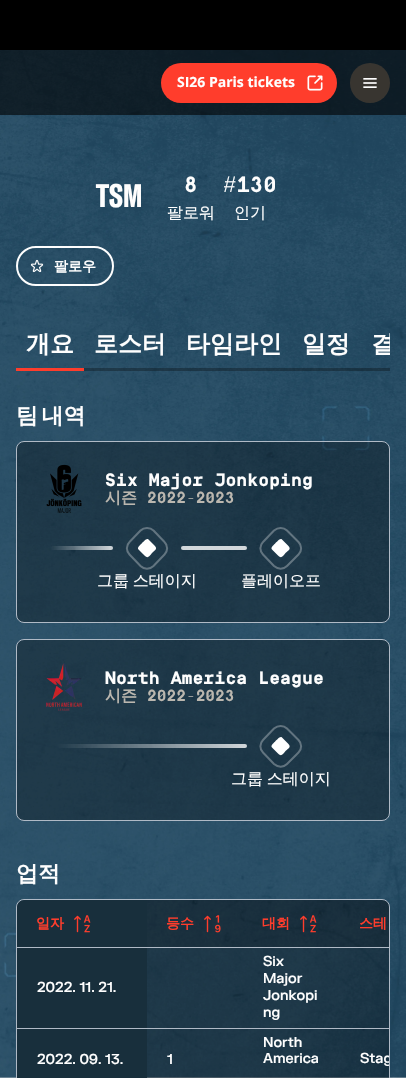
static SkFont makeFont(const char* family, int weight, float size, bool italic = false) {
  SkFontStyle style(weight, SkFontStyle::kNormal_Width,
    italic ? SkFontStyle::kItalic_Slant : SkFontStyle::kUpright_Slant);
  SkFont result(fontMgr->matchFamilyStyle(family, style), size);
  result.setSubpixel(true);
  return result;
}

static void text(SkCanvas* c, const char* s, float x, float y, const SkFont& font, SkColor color) {
  SkPaint ink(SkColor4f::FromColor(color));
  ink.setAntiAlias(true);
  c->drawString(s, x, y, font, ink);
}

static void spacedText(SkCanvas* c, const char* s, float x, float y, const SkFont& font, const SkPaint& ink, float letter, float word) {
  std::vector<SkGlyphID> glyphs(font.countText(s, strlen(s), SkTextEncoding::kUTF8));
  std::vector<float> xs(glyphs.size());
  font.textToGlyphs(s, strlen(s), SkTextEncoding::kUTF8, glyphs);
  font.getXPos(glyphs, xs, x);
  float extra = 0;
  for (size_t i = 0; i < glyphs.size(); i++) {
    xs[i] += extra;
    extra += letter + word * (glyphs[i] == font.unicharToGlyph(' '));
  }
  c->drawTextBlob(SkTextBlob::MakeFromPosHGlyphs(glyphs, xs, y, font), 0, 0, ink);
}

static void box(SkCanvas* c, float l, float t, float r, float b, SkColor color) {
  SkPaint ink(SkColor4f::FromColor(color));
  ink.setAntiAlias(true);
  c->drawRect(SkRect::MakeLTRB(l, t, r, b), ink);
}

static void roundBox(SkCanvas* c, float l, float t, float r, float b, float radius, SkColor color) {
  SkPaint ink(SkColor4f::FromColor(color));
  ink.setAntiAlias(true);
  c->drawRoundRect(SkRect::MakeLTRB(l, t, r, b), radius, radius, ink);
}

static void picture(SkCanvas* c, const char* path, float l, float t, float r, float b) {
  auto image = SkImages::DeferredFromEncodedData(SkData::MakeFromFileName(path));
  c->drawImageRect(image, SkRect::MakeLTRB(l, t, r, b), SkSamplingOptions());
}

void draw(SkCanvas* c) {
  SkPaint paint;
  paint.setAntiAlias(true);
  c->clear(0xffffffff);
  picture(c, "img_01.png", 0, 50, 406, 1078);
  box(c, 0, 0, 406, 50, 0xff000000);
  box(c, 0, 50, 406, 115, 0x99000000);
  roundBox(c, 161, 63, 337, 103, 20, 0xffff3d2c);
  SkFont face1 = makeFont("Open Sans", 700, 14);
  text(c, "SI26 Paris tickets", 177, 87, face1, 0xfffefefe);
  picture(c, "img_02.png", 307, 75, 323, 91);
  paint.setColor(0xff383530);
  c->drawCircle(370, 83, 20, paint);
  picture(c, "img_03.png", 363, 78, 377, 88);
  SkFont face2 = makeFont("GT America", 700, 32);
  text(c, "TSM", 96, 207, face2, 0xfffefefe);
  SkFont face3 = makeFont("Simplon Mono", 700, 22);
  text(c, "8", 184, 192, face3, 0xfffefefe);
  text(c, "#130", 223, 192, face3, 0xfffefefe);
  SkFont face4 = makeFont("WenQuanYi Zen Hei", 500, 16);
  text(c, "팔로워", 167, 218, face4, 0xfffefefe);
  text(c, "인기", 234, 218, face4, 0xfffefefe);
  paint.setStyle(SkPaint::kStroke_Style);
  paint.setStrokeWidth(2);
  paint.setColor(0xfffefefe);
  c->drawRoundRect(SkRect::MakeLTRB(17, 247, 113, 285), 19, 19, paint);
  picture(c, "img_04.png", 30, 259, 44, 273);
  SkFont face5 = makeFont("WenQuanYi Zen Hei", 700, 14);
  text(c, "팔로우", 54, 271, face5, 0xfffefefe);
  box(c, 16, 368, 84, 371, 0xffff3d2c);
  SkFont face6 = makeFont("WenQuanYi Zen Hei", 700, 24);
  text(c, "개요", 26, 352, face6, 0xfffefefe);
  box(c, 84, 368, 176, 371, 0x4d000000);
  text(c, "로스터", 94, 352, face6, 0xfffefefe);
  box(c, 176, 368, 292, 371, 0x4d000000);
  text(c, "타임라인", 186, 352, face6, 0xfffefefe);
  box(c, 292, 368, 361, 371, 0x4d000000);
  text(c, "일정", 302, 352, face6, 0xfffefefe);
  box(c, 361, 368, 390, 371, 0x4d000000);
  c->save();
  c->clipRect(SkRect::MakeLTRB(16, 318, 390, 371));
  text(c, "결", 371, 352, face6, 0xfffefefe);
  c->restore();
  SkFont face7 = makeFont("WenQuanYi Zen Hei", 700, 22);
  paint.setStyle(SkPaint::kFill_Style);
  spacedText(c, "팀 내역", 16, 423, face7, paint, 0, -3);
  paint.setColor(0x4d000000);
  c->drawRoundRect(SkRect::MakeLTRB(16.5f, 441.5f, 389.5f, 622.5f), 7.5f, 7.5f, paint);
  paint.setStyle(SkPaint::kStroke_Style);
  paint.setStrokeWidth(1);
  paint.setColor(0xffb0bac6);
  c->drawRoundRect(SkRect::MakeLTRB(16.5f, 441.5f, 389.5f, 622.5f), 7.5f, 7.5f, paint);
  picture(c, "img_05.png", 46, 464, 82, 513);
  SkFont face8 = makeFont("Simplon Mono", 700, 18);
  text(c, "Six Major Jonkoping", 105, 486, face8, 0xfffefefe);
  SkFont face9 = makeFont("WenQuanYi Zen Hei", 700, 16);
  text(c, "시즌", 105, 503, face9, 0xffbbb7af);
  SkFont face10 = makeFont("Simplon Mono", 700, 16);
  text(c, "2022-2023", 147, 503, face10, 0xffbbb7af);
  paint.setStyle(SkPaint::kFill_Style);
  {
    const SkColor colors[] = {0x00ffffff, 0xccffffff};
    const float stops[] = {0.05f, 1};
    const SkPoint ends[] = {{47, 548}, {113, 548}};
    paint.setShader(SkGradientShader::MakeLinear(ends, colors, stops, 2, SkTileMode::kClamp));
    paint.setAlpha(255);
  }
  c->drawRoundRect(SkRect::MakeLTRB(47, 546, 113, 550), 2, 2, paint);
  roundBox(c, 181, 546, 247, 550, 2, 0xccffffff);
  paint.setShader(nullptr);
  paint.setColor(0xffffffff);
  c->drawPath(SkPathBuilder().moveTo(148.5f, 539.5f).lineTo(154.5f, 545.5f).cubicTo(158, 549, 155, 550, 152, 553).cubicTo(149, 556.5f, 148, 559, 144.5f, 555.5f).lineTo(138.5f, 549.5f).cubicTo(136.5f, 547.5f, 141, 544.5f, 142, 543).cubicTo(143.5f, 542, 146.5f, 537.5f, 148.5f, 539.5f).close().detach(), paint);
  paint.setStyle(SkPaint::kStroke_Style);
  paint.setStrokeWidth(2);
  paint.setColor(0x4dffffff);
  c->drawPath(SkPathBuilder().moveTo(153.5f, 530.5f).lineTo(164.5f, 542).cubicTo(168, 545.5f, 168, 551, 164.5f, 554.5f).lineTo(153.5f, 566).cubicTo(150, 569.5f, 144, 569.5f, 140.5f, 566).lineTo(129.5f, 554.5f).cubicTo(126, 551, 126, 545.5f, 129.5f, 542).lineTo(140.5f, 530.5f).cubicTo(144, 527, 150, 527, 153.5f, 530.5f).close().detach(), paint);
  paint.setStyle(SkPaint::kFill_Style);
  paint.setColor(0xfffefefe);
  spacedText(c, "그룹 스테이지", 97, 586, face4, paint, 0, -1);
  paint.setColor(0xffffffff);
  c->drawPath(SkPathBuilder().moveTo(282, 539.5f).lineTo(288, 545.5f).cubicTo(291.5f, 549, 289, 550, 285.5f, 553).cubicTo(282.5f, 556.5f, 281.5f, 559, 278, 555.5f).lineTo(272, 549.5f).cubicTo(270, 547.5f, 274.5f, 544.5f, 275.5f, 543).cubicTo(277, 542, 280, 537.5f, 282, 539.5f).close().detach(), paint);
  paint.setStyle(SkPaint::kStroke_Style);
  paint.setColor(0x4dffffff);
  c->drawPath(SkPathBuilder().moveTo(287, 530.5f).lineTo(298.5f, 542).cubicTo(302, 545.5f, 302, 551, 298.5f, 554.5f).lineTo(287, 566).cubicTo(283.5f, 569.5f, 278, 569.5f, 274, 566).lineTo(263, 554.5f).cubicTo(259.5f, 551, 259.5f, 545.5f, 263, 542).lineTo(274, 530.5f).cubicTo(278, 527, 283.5f, 527, 287, 530.5f).close().detach(), paint);
  text(c, "플레이오프", 241, 586, face4, 0xfffefefe);
  paint.setStyle(SkPaint::kFill_Style);
  paint.setColor(0x4d000000);
  c->drawRoundRect(SkRect::MakeLTRB(16.5f, 639.5f, 389.5f, 820.5f), 7.5f, 7.5f, paint);
  paint.setStyle(SkPaint::kStroke_Style);
  paint.setStrokeWidth(1);
  paint.setColor(0xffb0bac6);
  c->drawRoundRect(SkRect::MakeLTRB(16.5f, 639.5f, 389.5f, 820.5f), 7.5f, 7.5f, paint);
  picture(c, "img_06.png", 46, 663, 82, 711);
  text(c, "North America League", 105, 684, face8, 0xfffefefe);
  text(c, "시즌", 105, 701, face9, 0xffbbb7af);
  text(c, "2022-2023", 147, 701, face10, 0xffbbb7af);
  paint.setStyle(SkPaint::kFill_Style);
  {
    const SkColor colors[] = {0x00ffffff, 0xccffffff};
    const float stops[] = {0.05f, 1};
    const SkPoint ends[] = {{47, 746}, {247, 746}};
    paint.setShader(SkGradientShader::MakeLinear(ends, colors, stops, 2, SkTileMode::kClamp));
    paint.setAlpha(255);
  }
  c->drawRoundRect(SkRect::MakeLTRB(47, 744, 247, 748), 2, 2, paint);
  paint.setShader(nullptr);
  paint.setColor(0xffffffff);
  c->drawPath(SkPathBuilder().moveTo(282, 737.5f).lineTo(288, 743.5f).cubicTo(291.5f, 747, 289, 748, 285.5f, 751).cubicTo(282.5f, 754.5f, 281.5f, 757, 278, 753.5f).lineTo(272, 747.5f).cubicTo(270, 745.5f, 274.5f, 742.5f, 275.5f, 741).cubicTo(277, 740, 280, 735.5f, 282, 737.5f).close().detach(), paint);
  paint.setStyle(SkPaint::kStroke_Style);
  paint.setStrokeWidth(2);
  paint.setColor(0x4dffffff);
  c->drawPath(SkPathBuilder().moveTo(287, 728.5f).lineTo(298.5f, 740).cubicTo(302, 743.5f, 302, 749, 298.5f, 752.5f).lineTo(287, 764).cubicTo(283.5f, 767.5f, 278, 767.5f, 274, 764).lineTo(263, 752.5f).cubicTo(259.5f, 749, 259.5f, 743.5f, 263, 740).lineTo(274, 728.5f).cubicTo(278, 725, 283.5f, 725, 287, 728.5f).close().detach(), paint);
  paint.setStyle(SkPaint::kFill_Style);
  paint.setColor(0xfffefefe);
  spacedText(c, "그룹 스테이지", 231, 784, face4, paint, 0, -1);
  text(c, "업적", 16, 881, face7, 0xfffefefe);
  paint.setColor(0x4d000000);
  c->drawRoundRect(SkRect::MakeLTRB(16.5f, 899.5f, 389.5f, 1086.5f), 7.5f, 7.5f, paint);
  paint.setStyle(SkPaint::kStroke_Style);
  paint.setStrokeWidth(1);
  paint.setColor(0xffb0bac6);
  c->drawRoundRect(SkRect::MakeLTRB(16.5f, 899.5f, 389.5f, 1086.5f), 7.5f, 7.5f, paint);
  c->save();
  c->clipPath(SkPathBuilder().moveTo(24, 900).lineTo(382, 900).cubicTo(386, 900, 389, 903, 389, 907).lineTo(389, 1654).cubicTo(389, 1658, 386, 1661, 382, 1661).lineTo(24, 1661).cubicTo(20, 1661, 17, 1658, 17, 1654).lineTo(17, 907).cubicTo(17, 903, 20, 900, 24, 900).close().detach(), true);
  paint.setStyle(SkPaint::kFill_Style);
  paint.setColor(0xff182f3c);
  c->drawPath(SkPathBuilder().moveTo(25, 900).lineTo(147, 900).lineTo(147, 947).lineTo(17, 947).lineTo(17, 908).cubicTo(17, 903.5f, 20.5f, 900, 25, 900).close().detach(), paint);
  c->restore();
  text(c, "일자", 36, 928, face5, 0xffff3d2c);
  picture(c, "img_07.png", 74, 915, 91, 933);
  box(c, 147, 900, 243, 947, 0x26000000);
  text(c, "등수", 166, 928, face5, 0xffff3d2c);
  picture(c, "img_08.png", 204, 915, 221, 933);
  box(c, 243, 900, 340, 947, 0x26000000);
  text(c, "대회", 262, 928, face5, 0xffff3d2c);
  picture(c, "img_09.png", 300, 915, 317, 933);
  paint.setColor(0x26000000);
  c->drawPath(SkPathBuilder().moveTo(340, 900).lineTo(382, 900).cubicTo(386, 900, 389, 903, 389, 907).lineTo(389, 947).lineTo(340, 947).close().detach(), paint);
  text(c, "스테", 359, 928, face5, 0xffff3d2c);
  box(c, 17, 947, 389, 948, 0xffb0bac6);
  box(c, 17, 948, 147, 1028, 0xff182f3c);
  SkFont face11 = makeFont("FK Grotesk", 500, 14);
  text(c, "2022. 11. 21.", 37, 992, face11, 0xfffefefe);
  text(c, "Six", 263, 966, face11, 0xfffefefe);
  text(c, "Major", 263, 983, face11, 0xfffefefe);
  text(c, "Jonkopi", 263, 1000, face11, 0xfffefefe);
  text(c, "ng", 263, 1017, face11, 0xfffefefe);
  box(c, 17, 1028, 389, 1029, 0xffb0bac6);
  box(c, 17, 1029, 147, 1078, 0xff182f3c);
  text(c, "2022. 09. 13.", 37, 1064, face11, 0xfffefefe);
  text(c, "1", 167, 1064, face11, 0xfffefefe);
  text(c, "North", 263, 1047, face11, 0xfffefefe);
  text(c, "America", 263, 1063, face11, 0xfffefefe);
  c->save();
  c->clipPath(SkPathBuilder().moveTo(24, 900).lineTo(382, 900).cubicTo(386, 900, 389, 903, 389, 907).lineTo(389, 1654).cubicTo(389, 1658, 386, 1661, 382, 1661).lineTo(24, 1661).cubicTo(20, 1661, 17, 1658, 17, 1654).lineTo(17, 907).cubicTo(17, 903, 20, 900, 24, 900).close().detach(), true);
  text(c, "Stag", 360, 1063, face11, 0xfffefefe);
  c->restore();
}
